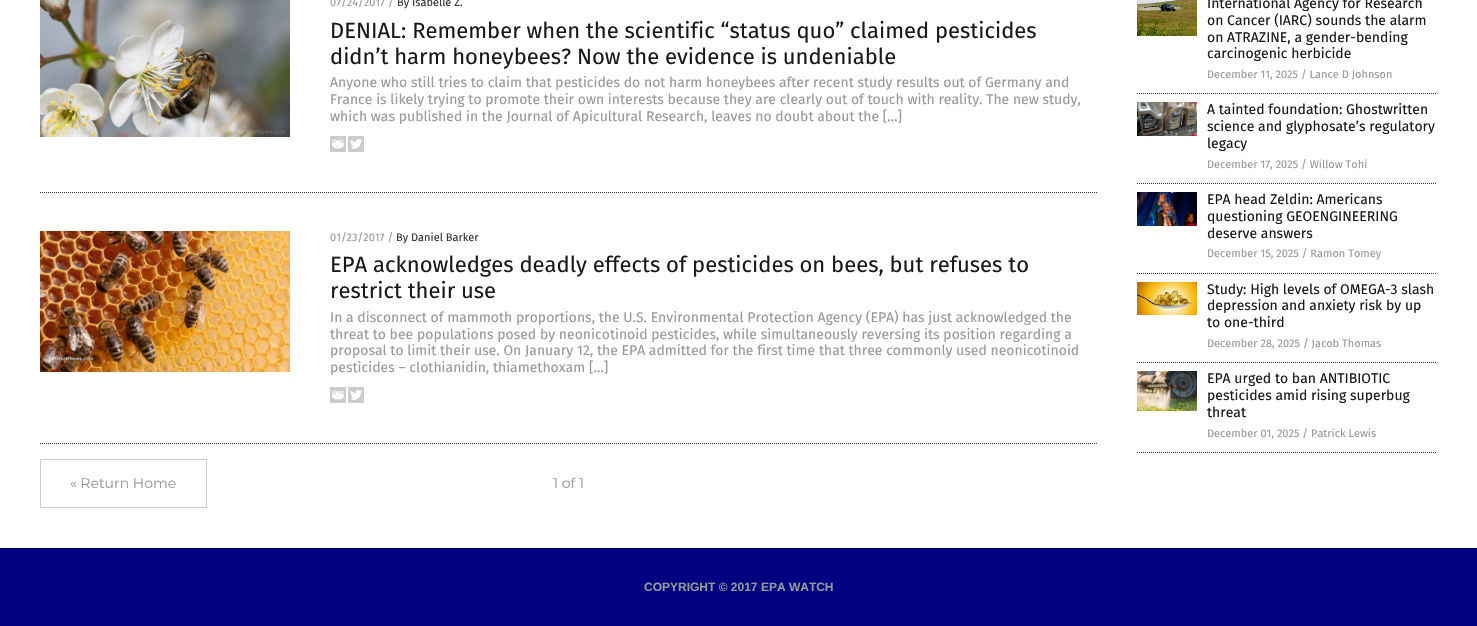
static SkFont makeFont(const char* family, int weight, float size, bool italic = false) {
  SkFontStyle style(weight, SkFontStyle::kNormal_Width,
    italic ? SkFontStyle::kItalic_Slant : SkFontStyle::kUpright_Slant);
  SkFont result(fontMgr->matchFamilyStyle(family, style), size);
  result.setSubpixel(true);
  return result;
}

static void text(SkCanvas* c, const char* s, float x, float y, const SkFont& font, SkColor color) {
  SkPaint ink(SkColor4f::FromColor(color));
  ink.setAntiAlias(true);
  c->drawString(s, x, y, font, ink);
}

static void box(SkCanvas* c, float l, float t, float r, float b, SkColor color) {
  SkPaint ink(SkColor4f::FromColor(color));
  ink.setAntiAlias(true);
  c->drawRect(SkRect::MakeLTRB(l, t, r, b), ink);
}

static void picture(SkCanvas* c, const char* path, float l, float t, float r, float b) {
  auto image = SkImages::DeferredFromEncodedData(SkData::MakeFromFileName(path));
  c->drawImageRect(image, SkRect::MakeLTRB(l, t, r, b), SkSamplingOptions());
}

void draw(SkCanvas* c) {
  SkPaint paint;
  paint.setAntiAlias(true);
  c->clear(0xff000080);
  box(c, 0, 0, 1477, 548, 0xffffffff);
  paint.setStyle(SkPaint::kStroke_Style);
  paint.setStrokeWidth(1);
  paint.setColor(0xff343434);
  paint.setPathEffect(SkDashPathEffect::Make({{1, 1}}, 0));
  c->drawPath(SkPathBuilder().moveTo(40, 192.5f).lineTo(1097, 192.5f).detach(), paint);
  paint.setPathEffect(nullptr);
  picture(c, "img_01.png", 40, 0, 290, 137);
  SkFont face1 = makeFont("Fira Sans", 400, 11);
  text(c, "07/24/2017 /", 330, 6, face1, 0xff999999);
  text(c, "By Isabelle Z.", 397, 6, face1, 0xff333333);
  SkFont face2 = makeFont("Fira Sans", 400, 22);
  text(c, "DENIAL: Remember when the scientific “status quo” claimed pesticides", 330, 38, face2, 0xff1a1a1a);
  text(c, "didn’t harm honeybees? Now the evidence is undeniable", 330, 64, face2, 0xff1a1a1a);
  SkFont face3 = makeFont("Fira Sans", 400, 14);
  text(c, "Anyone who still tries to claim that pesticides do not harm honeybees after recent study results out of Germany and", 330, 87, face3, 0xff999999);
  text(c, "France is likely trying to promote their own interests because they are clearly out of touch with reality. The new study,", 330, 104, face3, 0xff999999);
  text(c, "which was published in the Journal of Apicultural Research, leaves no doubt about the […]", 330, 121, face3, 0xff999999);
  picture(c, "img_02.png", 330, 136, 346, 152);
  picture(c, "img_03.png", 348, 136, 364, 152);
  paint.setPathEffect(SkDashPathEffect::Make({{1, 1}}, 0));
  c->drawPath(SkPathBuilder().moveTo(40, 443.5f).lineTo(1097, 443.5f).detach(), paint);
  paint.setPathEffect(nullptr);
  picture(c, "img_04.png", 40, 231, 290, 372);
  text(c, "01/23/2017 /", 330, 241, face1, 0xff999999);
  text(c, "By Daniel Barker", 396, 241, face1, 0xff333333);
  text(c, "EPA acknowledges deadly effects of pesticides on bees, but refuses to", 330, 272, face2, 0xff1a1a1a);
  text(c, "restrict their use", 330, 298, face2, 0xff1a1a1a);
  text(c, "In a disconnect of mammoth proportions, the U.S. Environmental Protection Agency (EPA) has just acknowledged the", 330, 322, face3, 0xff999999);
  text(c, "threat to bee populations posed by neonicotinoid pesticides, while simultaneously reversing its position regarding a", 330, 339, face3, 0xff999999);
  text(c, "proposal to limit their use. On January 12, the EPA admitted for the first time that three commonly used neonicotinoid", 330, 355, face3, 0xff999999);
  text(c, "pesticides – clothianidin, thiamethoxam […]", 330, 372, face3, 0xff999999);
  picture(c, "img_02.png", 330, 387, 346, 403);
  picture(c, "img_03.png", 348, 387, 364, 403);
  paint.setColor(0xffcccccc);
  c->drawRect(SkRect::MakeLTRB(40.5f, 459.5f, 206.5f, 507.5f), paint);
  SkFont face4 = makeFont("Montserrat", 400, 14);
  text(c, "« Return Home", 70, 488, face4, 0xff999999);
  text(c, "1 of 1", 553, 488, face4, 0xff999999);
  paint.setColor(0xff343434);
  paint.setPathEffect(SkDashPathEffect::Make({{1, 1}}, 0));
  c->drawPath(SkPathBuilder().moveTo(1137, 93.5f).lineTo(1437, 93.5f).detach(), paint);
  paint.setPathEffect(nullptr);
  picture(c, "img_05.png", 1137, 0, 1197, 36);
  text(c, "International Agency for Research", 1207, 8, face3, 0xff1a1a1a);
  text(c, "on Cancer (IARC) sounds the alarm", 1207, 25, face3, 0xff1a1a1a);
  text(c, "on ATRAZINE, a gender-bending", 1207, 42, face3, 0xff1a1a1a);
  text(c, "carcinogenic herbicide", 1207, 58, face3, 0xff1a1a1a);
  text(c, "December 11, 2025 / Lance D Johnson", 1207, 78, face1, 0xff999999);
  paint.setPathEffect(SkDashPathEffect::Make({{1, 1}}, 0));
  c->drawPath(SkPathBuilder().moveTo(1137, 183.5f).lineTo(1437, 183.5f).detach(), paint);
  paint.setPathEffect(nullptr);
  picture(c, "img_06.png", 1137, 102, 1197, 136);
  text(c, "A tainted foundation: Ghostwritten", 1207, 114, face3, 0xff1a1a1a);
  text(c, "science and glyphosate’s regulatory", 1207, 131, face3, 0xff1a1a1a);
  text(c, "legacy", 1207, 148, face3, 0xff1a1a1a);
  text(c, "December 17, 2025 / Willow Tohi", 1207, 168, face1, 0xff999999);
  paint.setPathEffect(SkDashPathEffect::Make({{1, 1}}, 0));
  c->drawPath(SkPathBuilder().moveTo(1137, 273.5f).lineTo(1437, 273.5f).detach(), paint);
  paint.setPathEffect(nullptr);
  picture(c, "img_07.png", 1137, 192, 1197, 226);
  text(c, "EPA head Zeldin: Americans", 1207, 204, face3, 0xff1a1a1a);
  text(c, "questioning GEOENGINEERING", 1207, 221, face3, 0xff1a1a1a);
  text(c, "deserve answers", 1207, 238, face3, 0xff1a1a1a);
  text(c, "December 15, 2025 / Ramon Tomey", 1207, 257, face1, 0xff999999);
  paint.setPathEffect(SkDashPathEffect::Make({{1, 1}}, 0));
  c->drawPath(SkPathBuilder().moveTo(1137, 362.5f).lineTo(1437, 362.5f).detach(), paint);
  paint.setPathEffect(nullptr);
  picture(c, "img_08.png", 1137, 282, 1197, 315);
  text(c, "Study: High levels of OMEGA-3 slash", 1207, 294, face3, 0xff1a1a1a);
  text(c, "depression and anxiety risk by up", 1207, 310, face3, 0xff1a1a1a);
  text(c, "to one-third", 1207, 327, face3, 0xff1a1a1a);
  text(c, "December 28, 2025 / Jacob Thomas", 1207, 347, face1, 0xff999999);
  paint.setPathEffect(SkDashPathEffect::Make({{1, 1}}, 0));
  c->drawPath(SkPathBuilder().moveTo(1137, 452.5f).lineTo(1437, 452.5f).detach(), paint);
  paint.setPathEffect(nullptr);
  picture(c, "img_09.png", 1137, 371, 1197, 411);
  text(c, "EPA urged to ban ANTIBIOTIC", 1207, 383, face3, 0xff1a1a1a);
  text(c, "pesticides amid rising superbug", 1207, 400, face3, 0xff1a1a1a);
  text(c, "threat", 1207, 417, face3, 0xff1a1a1a);
  text(c, "December 01, 2025 / Patrick Lewis", 1207, 437, face1, 0xff999999);
  SkFont face5 = makeFont("Liberation Sans", 700, 12);
  text(c, "COPYRIGHT © 2017 EPA WATCH", 644, 591, face5, 0xff999999);
}
